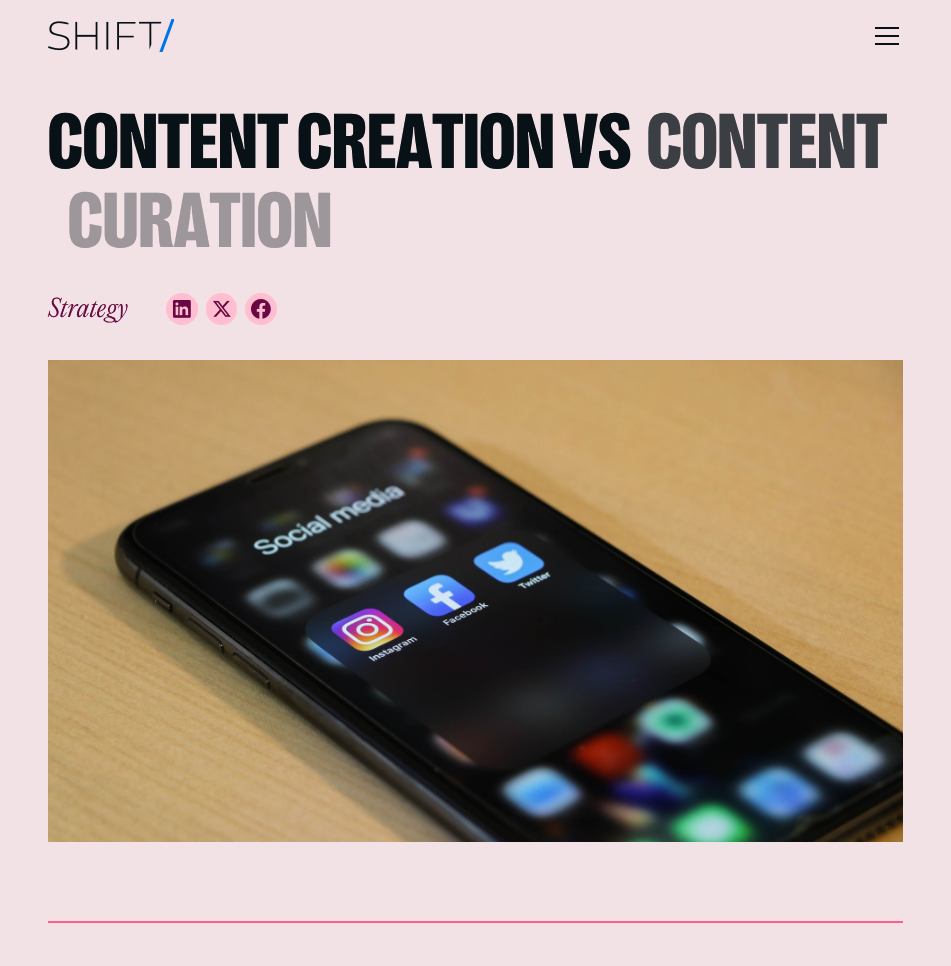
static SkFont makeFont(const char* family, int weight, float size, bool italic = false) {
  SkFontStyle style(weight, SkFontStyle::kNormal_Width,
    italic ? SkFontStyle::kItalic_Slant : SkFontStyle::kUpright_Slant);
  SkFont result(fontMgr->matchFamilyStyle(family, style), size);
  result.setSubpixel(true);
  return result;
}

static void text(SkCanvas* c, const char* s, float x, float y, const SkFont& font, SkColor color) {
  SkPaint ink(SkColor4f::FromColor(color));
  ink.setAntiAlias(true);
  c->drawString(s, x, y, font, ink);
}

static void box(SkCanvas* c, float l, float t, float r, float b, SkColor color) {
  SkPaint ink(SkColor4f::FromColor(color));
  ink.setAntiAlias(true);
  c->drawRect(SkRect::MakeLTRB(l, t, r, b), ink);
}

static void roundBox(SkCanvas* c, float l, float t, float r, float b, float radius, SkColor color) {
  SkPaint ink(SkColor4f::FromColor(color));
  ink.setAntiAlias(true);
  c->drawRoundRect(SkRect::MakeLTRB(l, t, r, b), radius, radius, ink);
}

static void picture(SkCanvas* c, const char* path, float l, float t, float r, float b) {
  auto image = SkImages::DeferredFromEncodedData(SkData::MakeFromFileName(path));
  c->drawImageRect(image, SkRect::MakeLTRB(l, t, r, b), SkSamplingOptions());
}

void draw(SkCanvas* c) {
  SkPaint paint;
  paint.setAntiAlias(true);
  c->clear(0xfff2e2e6);
  picture(c, "img_01.png", 48, 19, 174, 52);
  box(c, 875, 27, 899, 29, 0xff081116);
  box(c, 875, 35, 899, 37, 0xff081116);
  box(c, 875, 43, 899, 45, 0xff081116);
  SkFont face1 = makeFont("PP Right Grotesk", 900, 79.25f);
  text(c, "CONTENT CREATION", 48, 168, face1, 0xff081116);
  text(c, "VS", 563, 168, face1, 0xff081116);
  text(c, "CONTENT", 647, 168, face1, 0xff3b3e43);
  text(c, "CURATION", 68, 247, face1, 0xff9d969b);
  SkFont face2 = makeFont("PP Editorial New", 300, 24, true);
  text(c, "Strategy", 48, 317, face2, 0xff680741);
  paint.setColor(0xffffbfd0);
  c->drawCircle(182, 309, 16, paint);
  picture(c, "img_02.png", 172, 300, 191, 318);
  roundBox(c, 206, 293, 237, 325, 15.5f, 0xffffbfd0);
  picture(c, "img_03.png", 213, 300, 231, 317);
  c->drawCircle(261, 309, 16, paint);
  picture(c, "img_04.png", 251, 299, 271, 319);
  picture(c, "img_05.png", 48, 360, 903, 842);
  box(c, 48, 921, 903, 923, 0xfffe608a);
}
